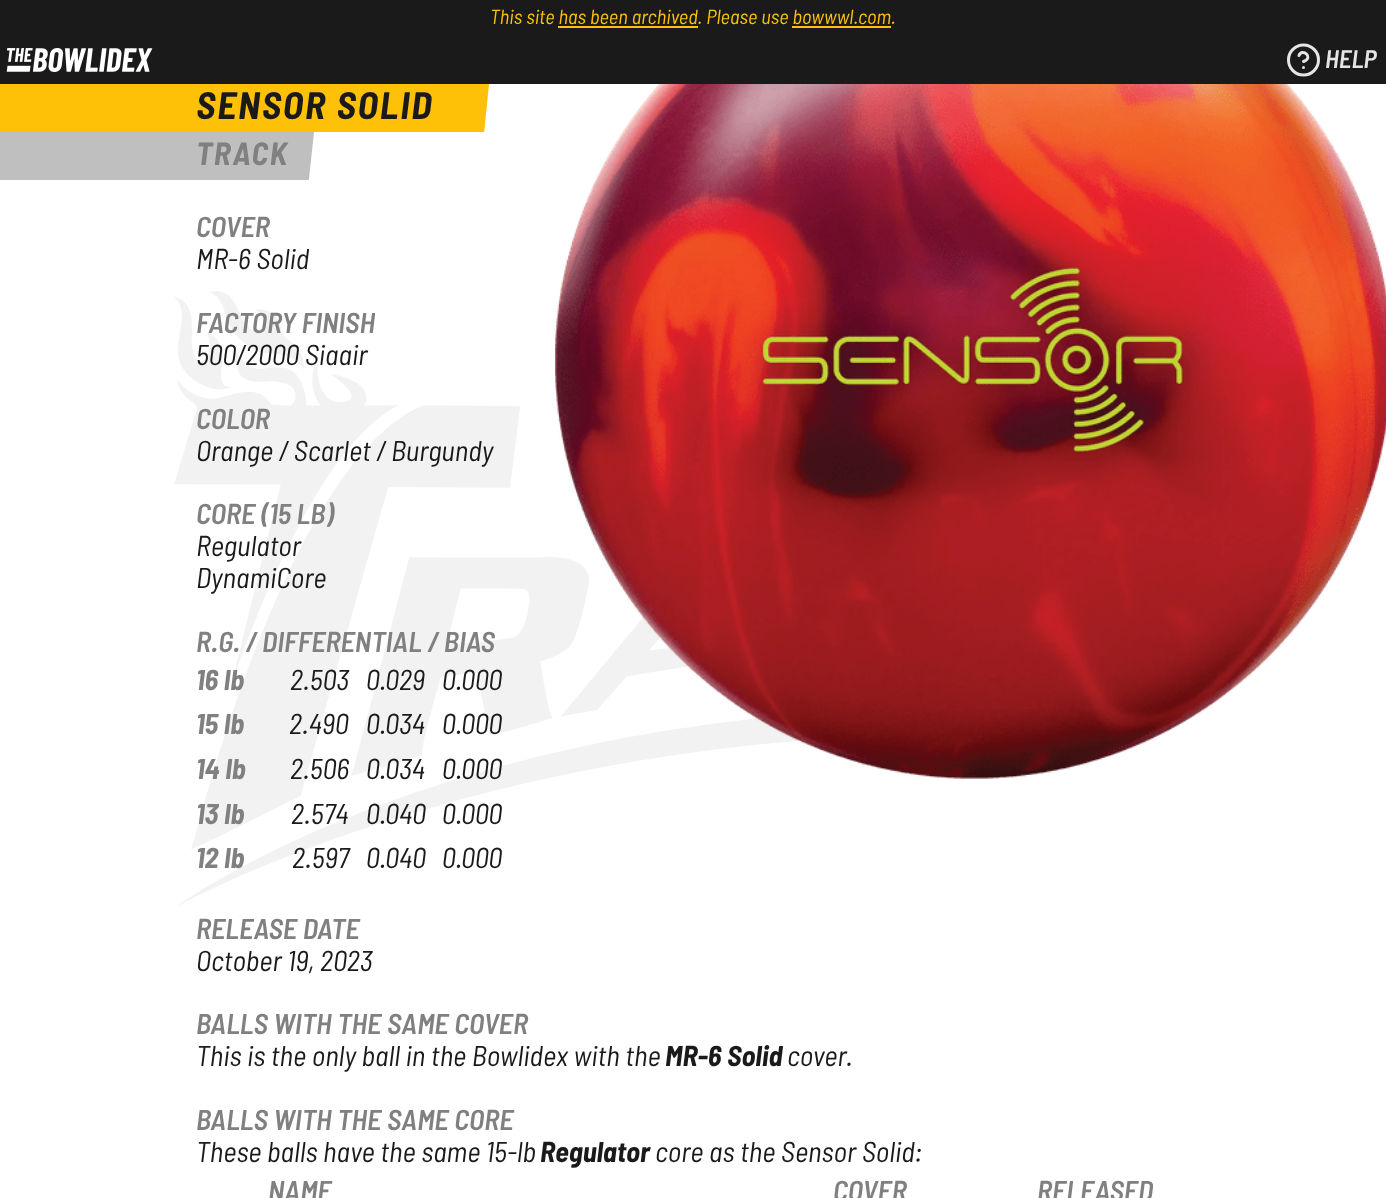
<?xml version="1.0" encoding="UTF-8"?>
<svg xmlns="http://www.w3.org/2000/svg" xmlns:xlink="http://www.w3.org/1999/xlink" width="1386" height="1198">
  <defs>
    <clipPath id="clip1"><rect x="183" y="84" width="306" height="48" /></clipPath>
    <clipPath id="clip2"><rect x="183" y="132" width="131" height="48" /></clipPath>
  </defs>
  <rect width="100%" height="100%" fill="#ffffff" />
  <image x="174" y="291" width="628" height="615" xlink:href="image1.png" />
  <rect width="1386" height="84" fill="#1a1a1a" />
  <rect x="558" y="26" width="140" height="2" fill="#ffc107" />
  <rect x="792" y="26" width="99" height="2" fill="#ffc107" />
  <image x="6" y="48" width="147" height="24" xlink:href="image2.png" />
  <circle cx="1303.5" cy="60" r="15" fill="none" stroke="#e5e5e5" stroke-width="3" />
  <path d="M 1299 55.5 c 3 -8 15.5 2 4.5 6 m 0 6 h 0" fill="none" stroke="#e5e5e5" stroke-width="3" stroke-linecap="round" stroke-linejoin="round" />
  <g clip-path="url(#clip1)">
    <path d="M -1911 234 l 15 -150 h 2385 l -15 150 z" fill="#ffc107" />
  </g>
  <rect y="84" width="183" height="48" fill="#ffc107" />
  <g clip-path="url(#clip2)">
    <path d="M -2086 282 l 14 -150 h 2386 l -16 150 z" fill="#bfbfbf" />
  </g>
  <rect y="132" width="183" height="48" fill="#bfbfbf" />
  <image x="555" y="84" width="831" height="695" xlink:href="image3.png" />
  <text x="490" y="24" style="font-family: Barlow Semi Condensed; font-size: 20.4px; font-style: italic; fill: #ffc107">This site has been archived. Please use bowwwl.com.</text>
  <text x="1325" y="68" style="font-family: Barlow Semi Condensed; font-size: 25.5px; font-weight: 600; font-style: italic; fill: #e5e5e5">HELP</text>
  <text x="196" y="119" style="font-family: Barlow Semi Condensed; font-size: 38.25px; font-weight: bold; font-style: italic; letter-spacing: 1.9px; fill: #1a1a1a">SENSOR SOLID</text>
  <text x="196" y="165" style="font-family: Barlow Semi Condensed; font-size: 32px; font-weight: bold; font-style: italic; letter-spacing: 1.5px; fill: #808080">TRACK</text>
  <text x="196" y="237" style="font-family: Barlow Semi Condensed; font-size: 28.75px; font-weight: 600; font-style: italic; fill: #808080">COVER</text>
  <text x="196" y="269" style="font-family: Barlow Semi Condensed; font-size: 28.75px; font-style: italic; fill: #1a1a1a">MR-6 Solid</text>
  <text x="196" y="333" style="font-family: Barlow Semi Condensed; font-size: 28.75px; font-weight: 600; font-style: italic; fill: #808080">FACTORY FINISH</text>
  <text x="196" y="365" style="font-family: Barlow Semi Condensed; font-size: 28.75px; font-style: italic; fill: #1a1a1a">500/2000 Siaair</text>
  <text x="196" y="429" style="font-family: Barlow Semi Condensed; font-size: 28.75px; font-weight: 600; font-style: italic; fill: #808080">COLOR</text>
  <text x="196" y="461" style="font-family: Barlow Semi Condensed; font-size: 28.75px; font-style: italic; fill: #1a1a1a">Orange / Scarlet / Burgundy</text>
  <text x="196" y="524" style="font-family: Barlow Semi Condensed; font-size: 28.75px; font-weight: 600; font-style: italic; fill: #808080">CORE (15 LB)</text>
  <text x="196" y="556" style="font-family: Barlow Semi Condensed; font-size: 28.75px; font-style: italic; fill: #1a1a1a">Regulator</text>
  <text x="196" y="588" style="font-family: Barlow Semi Condensed; font-size: 28.75px; font-style: italic; fill: #1a1a1a">DynamiCore</text>
  <text x="196" y="652" style="font-family: Barlow Semi Condensed; font-size: 28.75px; font-weight: 600; font-style: italic; fill: #808080">R.G. / DIFFERENTIAL / BIAS</text>
  <text x="196" y="690" style="font-family: Barlow Semi Condensed; font-size: 28.75px; font-weight: bold; font-style: italic; fill: #808080">16 lb</text>
  <text x="290" y="690" style="font-family: Barlow Semi Condensed; font-size: 28.75px; font-style: italic; fill: #1a1a1a">2.503</text>
  <text x="366" y="690" style="font-family: Barlow Semi Condensed; font-size: 28.75px; font-style: italic; fill: #1a1a1a">0.029</text>
  <text x="442" y="690" style="font-family: Barlow Semi Condensed; font-size: 28.75px; font-style: italic; fill: #1a1a1a">0.000</text>
  <text x="196" y="734" style="font-family: Barlow Semi Condensed; font-size: 28.75px; font-weight: bold; font-style: italic; fill: #808080">15 lb</text>
  <text x="289" y="734" style="font-family: Barlow Semi Condensed; font-size: 28.75px; font-style: italic; fill: #1a1a1a">2.490</text>
  <text x="366" y="734" style="font-family: Barlow Semi Condensed; font-size: 28.75px; font-style: italic; fill: #1a1a1a">0.034</text>
  <text x="442" y="734" style="font-family: Barlow Semi Condensed; font-size: 28.75px; font-style: italic; fill: #1a1a1a">0.000</text>
  <text x="196" y="779" style="font-family: Barlow Semi Condensed; font-size: 28.75px; font-weight: bold; font-style: italic; fill: #808080">14 lb</text>
  <text x="290" y="779" style="font-family: Barlow Semi Condensed; font-size: 28.75px; font-style: italic; fill: #1a1a1a">2.506</text>
  <text x="366" y="779" style="font-family: Barlow Semi Condensed; font-size: 28.75px; font-style: italic; fill: #1a1a1a">0.034</text>
  <text x="442" y="779" style="font-family: Barlow Semi Condensed; font-size: 28.75px; font-style: italic; fill: #1a1a1a">0.000</text>
  <text x="196" y="824" style="font-family: Barlow Semi Condensed; font-size: 28.75px; font-weight: bold; font-style: italic; fill: #808080">13 lb</text>
  <text x="291" y="824" style="font-family: Barlow Semi Condensed; font-size: 28.75px; font-style: italic; fill: #1a1a1a">2.574</text>
  <text x="366" y="824" style="font-family: Barlow Semi Condensed; font-size: 28.75px; font-style: italic; fill: #1a1a1a">0.040</text>
  <text x="442" y="824" style="font-family: Barlow Semi Condensed; font-size: 28.75px; font-style: italic; fill: #1a1a1a">0.000</text>
  <text x="196" y="868" style="font-family: Barlow Semi Condensed; font-size: 28.75px; font-weight: bold; font-style: italic; fill: #808080">12 lb</text>
  <text x="292" y="868" style="font-family: Barlow Semi Condensed; font-size: 28.75px; font-style: italic; fill: #1a1a1a">2.597</text>
  <text x="366" y="868" style="font-family: Barlow Semi Condensed; font-size: 28.75px; font-style: italic; fill: #1a1a1a">0.040</text>
  <text x="442" y="868" style="font-family: Barlow Semi Condensed; font-size: 28.75px; font-style: italic; fill: #1a1a1a">0.000</text>
  <text x="196" y="939" style="font-family: Barlow Semi Condensed; font-size: 28.75px; font-weight: 600; font-style: italic; fill: #808080">RELEASE DATE</text>
  <text x="196" y="971" style="font-family: Barlow Semi Condensed; font-size: 28.75px; font-style: italic; fill: #1a1a1a">October 19, 2023</text>
  <text x="196" y="1034" style="font-family: Barlow Semi Condensed; font-size: 28.75px; font-weight: 600; font-style: italic; fill: #808080">BALLS WITH THE SAME COVER</text>
  <text x="196" y="1066" style="font-family: Barlow Semi Condensed; font-size: 28.75px; font-style: italic; fill: #1a1a1a">This is the only ball in the Bowlidex with the</text>
  <text x="665" y="1066" style="font-family: Barlow Semi Condensed; font-size: 28.75px; font-weight: bold; font-style: italic; fill: #1a1a1a">MR-6 Solid</text>
  <text x="787" y="1066" style="font-family: Barlow Semi Condensed; font-size: 28.75px; font-style: italic; fill: #1a1a1a">cover.</text>
  <text x="196" y="1130" style="font-family: Barlow Semi Condensed; font-size: 28.75px; font-weight: 600; font-style: italic; fill: #808080">BALLS WITH THE SAME CORE</text>
  <text x="196" y="1162" style="font-family: Barlow Semi Condensed; font-size: 28.75px; font-style: italic; fill: #1a1a1a">These balls have the same 15-lb</text>
  <text x="540" y="1162" style="font-family: Barlow Semi Condensed; font-size: 28.75px; font-weight: bold; font-style: italic; fill: #1a1a1a">Regulator</text>
  <text x="655" y="1162" style="font-family: Barlow Semi Condensed; font-size: 28.75px; font-style: italic; fill: #1a1a1a">core as the Sensor Solid:</text>
  <text x="268" y="1201" style="font-family: Barlow Semi Condensed; font-size: 28.75px; font-weight: 600; font-style: italic; fill: #808080">NAME</text>
  <text x="833" y="1201" style="font-family: Barlow Semi Condensed; font-size: 28.75px; font-weight: 600; font-style: italic; fill: #808080">COVER</text>
  <text x="1037" y="1201" style="font-family: Barlow Semi Condensed; font-size: 28.75px; font-weight: 600; font-style: italic; fill: #808080">RELEASED</text>
</svg>
